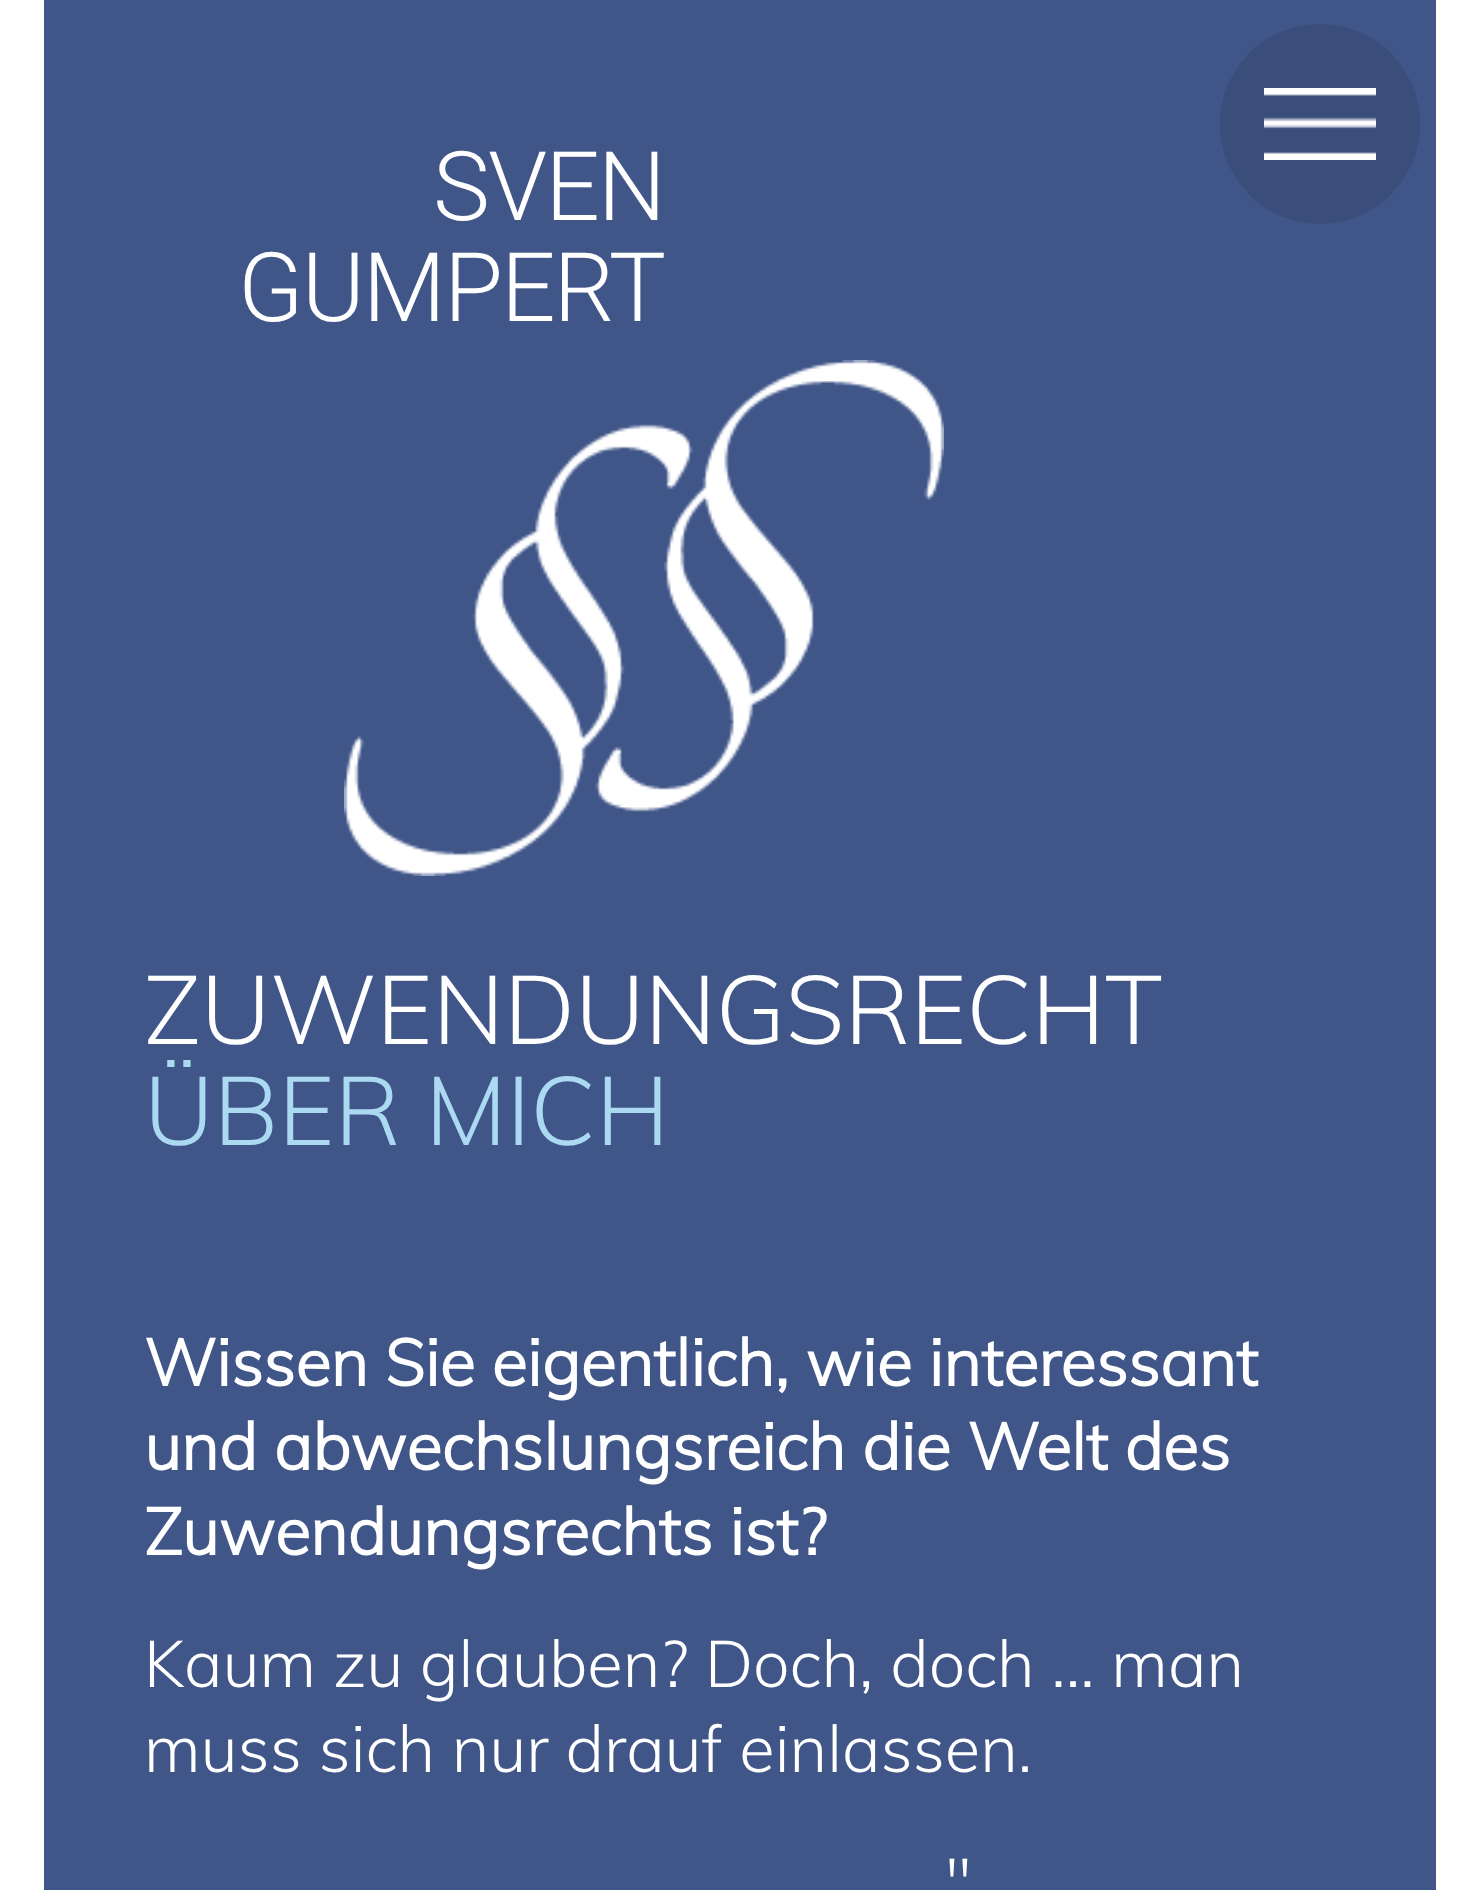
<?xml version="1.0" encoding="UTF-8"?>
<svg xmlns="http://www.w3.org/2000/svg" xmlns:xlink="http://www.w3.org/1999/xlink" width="1479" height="1890">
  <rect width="100%" height="100%" fill="#ffffff" />
  <rect x="44" width="1392" height="1890" fill="#405689" />
  <circle cx="1320" cy="124" r="100" fill="#3a4d7b" />
  <image x="1264" y="88" width="112" height="72" xlink:href="image1.png" />
  <image x="344" y="360" width="600" height="516" xlink:href="image2.png" />
  <text x="433" y="220" style="font-family: Roboto; font-size: 96px; font-weight: 300; letter-spacing: -2px; fill: #ffffff">SVEN</text>
  <text x="238" y="321" style="font-family: Roboto; font-size: 96px; font-weight: 300; letter-spacing: -2px; fill: #ffffff">GUMPERT</text>
  <text x="144" y="1044" style="font-family: Muli; font-size: 96px; font-weight: 300; fill: #ffffff">ZUWENDUNGSRECHT</text>
  <text x="144" y="1145" style="font-family: Muli; font-size: 96px; font-weight: 300; fill: #abd9f1">ÜBER MICH</text>
  <text x="144" y="1386" style="font-family: Muli; font-size: 65.1px; font-weight: bold; fill: #ffffff">Wissen Sie eigentlich, wie interessant</text>
  <text x="144" y="1470" style="font-family: Muli; font-size: 65.1px; font-weight: bold; fill: #ffffff">und abwechslungsreich die Welt des</text>
  <text x="144" y="1555" style="font-family: Muli; font-size: 65.1px; font-weight: bold; fill: #ffffff">Zuwendungsrechts ist?</text>
  <text x="144" y="1687" style="font-family: Muli; font-size: 65.1px; font-weight: 300; fill: #ffffff">Kaum zu glauben? Doch, doch … man</text>
  <text x="144" y="1772" style="font-family: Muli; font-size: 65.1px; font-weight: 300; fill: #ffffff">muss sich nur drauf einlassen.</text>
  <text x="945" y="1905" style="font-family: Muli; font-size: 65.1px; font-weight: 300; fill: #ffffff">"</text>
</svg>
